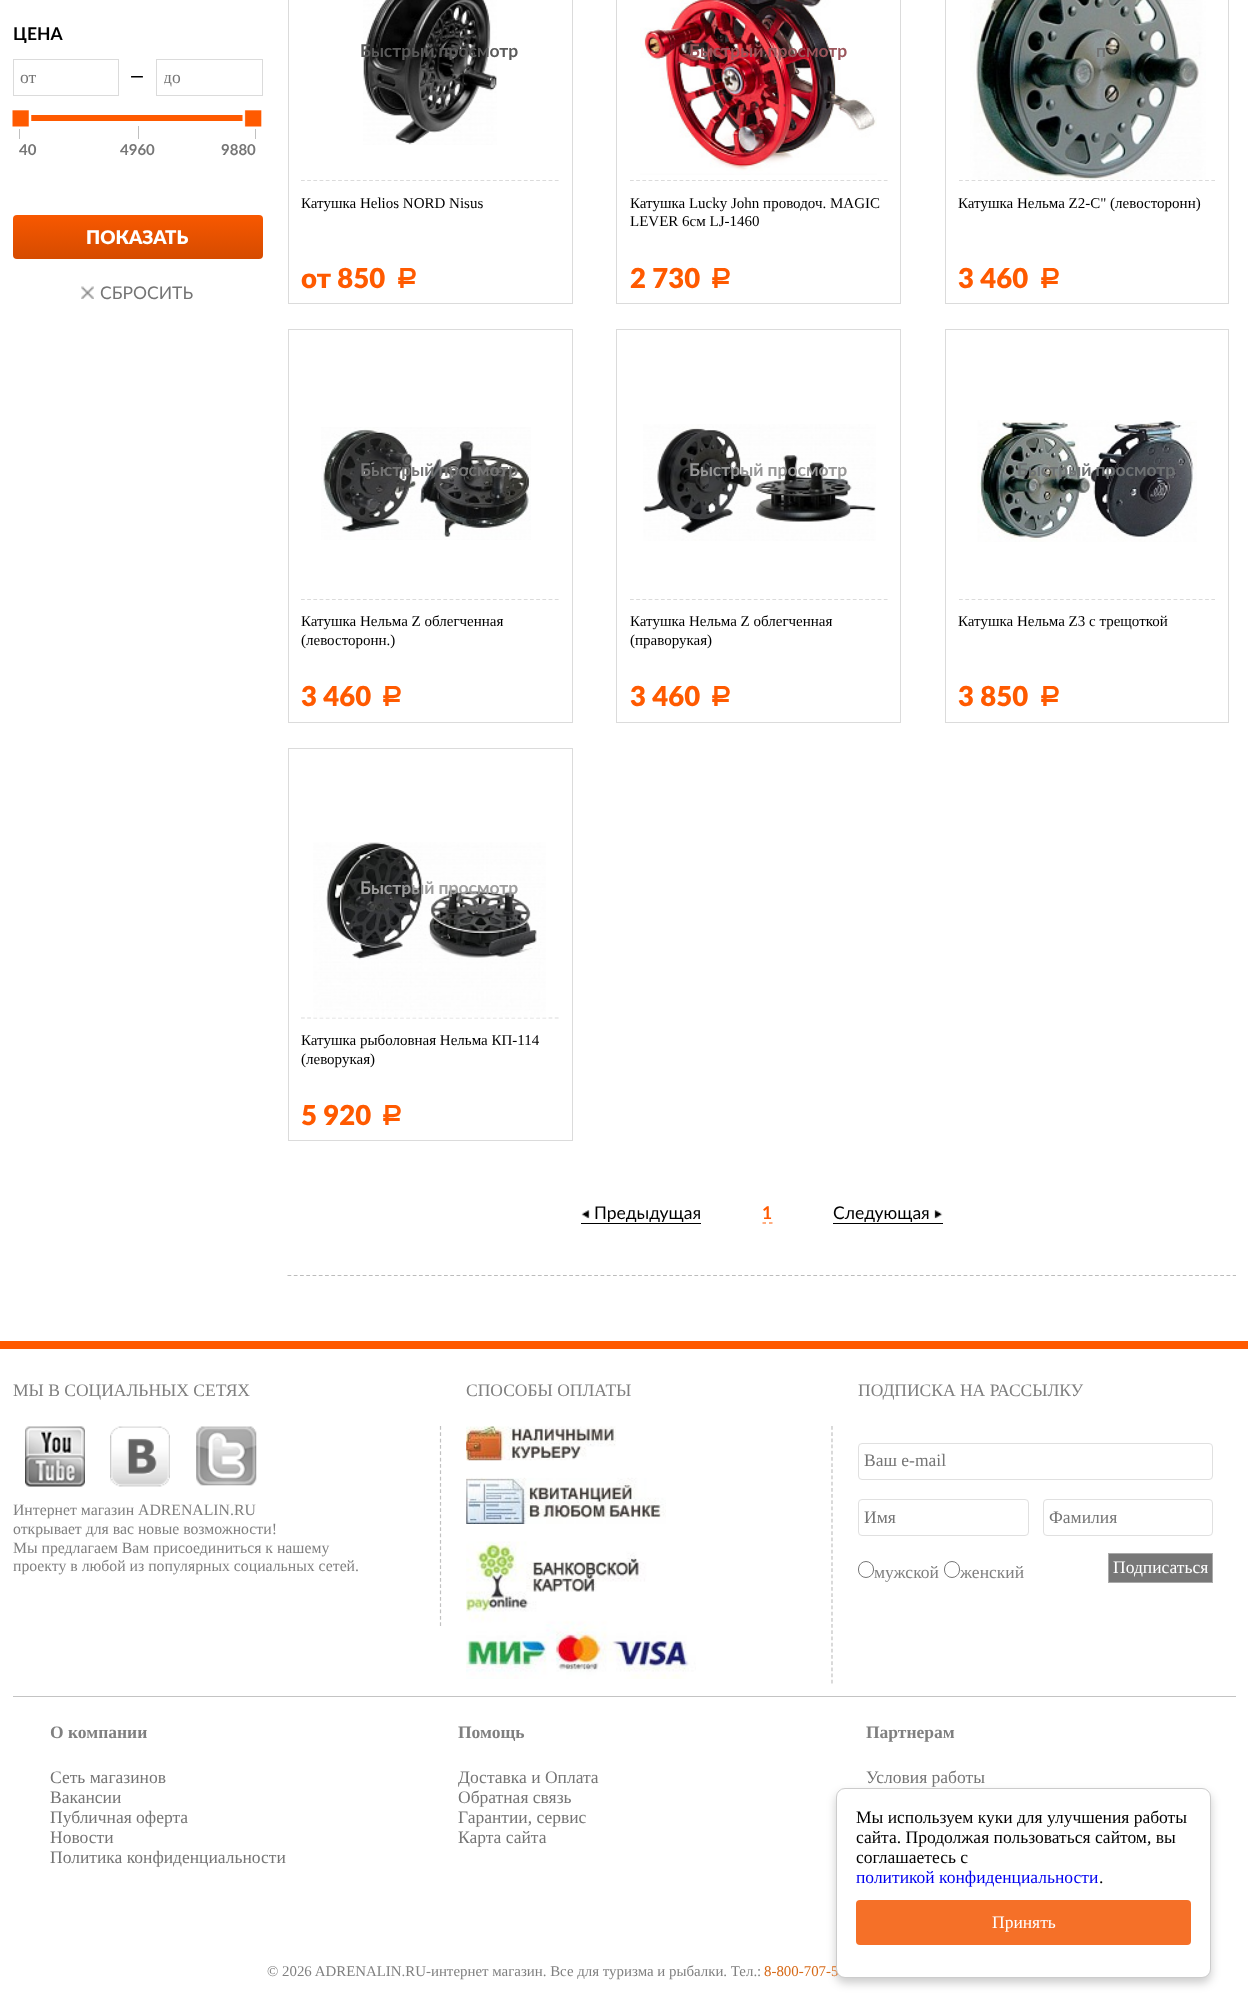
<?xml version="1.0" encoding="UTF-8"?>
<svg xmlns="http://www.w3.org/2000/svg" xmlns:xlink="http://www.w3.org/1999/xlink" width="1248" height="2014">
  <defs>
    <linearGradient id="g1" gradientUnits="userSpaceOnUse" x1="138" y1="215" x2="138" y2="259"><stop offset="0" stop-color="#f85800" /><stop offset="1" stop-color="#d54b00" /></linearGradient>
    <clipPath id="clip1"><rect x="164" y="68" width="97" height="20" /></clipPath>
  </defs>
  <rect width="100%" height="100%" fill="#ffffff" />
  <rect x="13.5" y="59.5" width="105" height="36" fill="none" stroke="#dbdbdb" />
  <rect x="156.5" y="59.5" width="106" height="36" fill="none" stroke="#dbdbdb" />
  <rect x="31" y="115" width="212" height="6" fill="#ff5a00" />
  <rect x="19" y="126" width="1" height="13" fill="#c0c0c0" />
  <image x="10" y="108" width="22" height="21" xlink:href="image1.png" />
  <rect x="255" y="126" width="1" height="13" fill="#c0c0c0" />
  <image x="242" y="108" width="22" height="21" xlink:href="image2.png" />
  <rect x="138" y="126" width="1" height="13" fill="#c0c0c0" />
  <rect x="13" y="215" width="250" height="44" rx="4" fill="url(#g1)" />
  <image x="81" y="286" width="13" height="13" xlink:href="image3.png" />
  <rect x="288.5" y="-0.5" width="284" height="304" fill="none" stroke="#dbdbdb" />
  <path d="M 301 180.5 h 258" fill="none" stroke="#dbdbdb" stroke-width="1.2" stroke-dasharray="3.75 2.44" />
  <image x="363" y="0" width="134" height="145" xlink:href="image4.png" />
  <rect x="616.5" y="-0.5" width="284" height="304" fill="none" stroke="#dbdbdb" />
  <path d="M 630 180.5 h 257.5" fill="none" stroke="#dbdbdb" stroke-width="1.2" stroke-dasharray="3.75 2.44" />
  <image x="640" y="0" width="237" height="175" xlink:href="image5.png" />
  <rect x="945.5" y="-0.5" width="283" height="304" fill="none" stroke="#dbdbdb" />
  <path d="M 959 180.5 h 256" fill="none" stroke="#dbdbdb" stroke-width="1.2" stroke-dasharray="3.75 2.56" />
  <image x="970" y="0" width="236" height="180" xlink:href="image6.png" />
  <rect x="288.5" y="329.5" width="284" height="393" fill="none" stroke="#dbdbdb" />
  <path d="M 301 599.5 h 258" fill="none" stroke="#dbdbdb" stroke-width="1.2" stroke-dasharray="3.75 2.44" />
  <image x="321" y="427" width="210" height="113" xlink:href="image7.png" />
  <rect x="616.5" y="329.5" width="284" height="393" fill="none" stroke="#dbdbdb" />
  <path d="M 630 599.5 h 257.5" fill="none" stroke="#dbdbdb" stroke-width="1.2" stroke-dasharray="3.75 2.44" />
  <image x="643" y="424" width="233" height="117" xlink:href="image8.png" />
  <rect x="945.5" y="329.5" width="283" height="393" fill="none" stroke="#dbdbdb" />
  <path d="M 959 599.5 h 256" fill="none" stroke="#dbdbdb" stroke-width="1.2" stroke-dasharray="3.75 2.56" />
  <image x="977" y="420" width="220" height="122" xlink:href="image9.png" />
  <rect x="288.5" y="748.5" width="284" height="392" fill="none" stroke="#dbdbdb" />
  <path d="M 301 1018 h 258" fill="none" stroke="#dbdbdb" stroke-width="1.2" stroke-dasharray="3.75 2.44" />
  <image x="313" y="842" width="233" height="176" xlink:href="image10.png" />
  <path d="M 287.5 1275.5 h 948.5" fill="none" stroke="#bcbcbc" stroke-width="1.2" stroke-dasharray="3.75 2.51" />
  <image x="581" y="1210" width="9" height="9" xlink:href="image11.png" />
  <rect x="581" y="1223" width="120" height="1" fill="#000000" />
  <path d="M 762.5 1223 h 3.5 m 3 0 h 3.5" fill="none" stroke="#ff5a00" stroke-width="1.2" />
  <rect x="833" y="1223" width="110" height="1" fill="#000000" />
  <image x="934" y="1210" width="9" height="9" xlink:href="image12.png" />
  <rect y="1341" width="1248" height="8" fill="#ff5a00" />
  <path d="M 440.5 1426 v 200" fill="none" stroke="#c1c1c1" stroke-width="1.2" stroke-dasharray="3.75 2.58" />
  <image x="25" y="1426" width="60" height="61" xlink:href="image13.png" />
  <image x="110" y="1426" width="60" height="61" xlink:href="image14.png" />
  <image x="196" y="1426" width="61" height="60" xlink:href="image15.png" />
  <path d="M 832 1426 v 258" fill="none" stroke="#c1c1c1" stroke-width="1.2" stroke-dasharray="3.75 2.44" />
  <image x="466" y="1426" width="150" height="35" xlink:href="image16.png" />
  <image x="466" y="1477" width="200" height="47" xlink:href="image17.png" />
  <image x="466" y="1541" width="230" height="138" xlink:href="image18.png" />
  <rect x="858.5" y="1443.5" width="354" height="36" rx="3.5" fill="none" stroke="#e0e0e0" />
  <rect x="858.5" y="1499.5" width="170" height="36" rx="3.5" fill="none" stroke="#e0e0e0" />
  <rect x="1043.5" y="1499.5" width="169" height="36" rx="3.5" fill="none" stroke="#e0e0e0" />
  <rect x="858.5" y="1561.5" width="15" height="16" rx="7.5" fill="none" stroke="#767676" />
  <rect x="944.5" y="1561.5" width="15" height="16" rx="7.5" fill="none" stroke="#767676" />
  <rect x="1108.5" y="1553.5" width="104" height="29" fill="#787878" stroke="#aaaaaa" />
  <rect x="13" y="1696" width="1223" height="1" fill="#c3c3c3" />
  <rect x="836" y="1793" width="375" height="190" rx="9" fill="#000000" fill-opacity="0.2" filter="blur(5px)" />
  <text x="13" y="40" style="font-family: Lato; font-size: 17.5px; font-weight: bold; fill: #000000">ЦЕНА</text>
  <text x="20" y="83" style="font-family: Liberation Serif; font-size: 17.5px; fill: #757575">от</text>
  <text x="130" y="82" style="font-family: Lato; font-size: 17.5px; font-weight: bold; fill: #000000">—</text>
  <g clip-path="url(#clip1)">
    <text x="163" y="83" style="font-family: Liberation Serif; font-size: 17.5px; fill: #757575">до</text>
  </g>
  <text x="19" y="155" style="font-family: Lato; font-size: 15px; font-weight: bold; fill: #757575">40</text>
  <text x="120" y="155" style="font-family: Lato; font-size: 15px; font-weight: bold; fill: #757575">4960</text>
  <text x="221" y="155" style="font-family: Lato; font-size: 15px; font-weight: bold; fill: #757575">9880</text>
  <text x="86" y="244" style="font-family: Lato; font-size: 18.75px; font-weight: 900; fill: #ffffff">ПОКАЗАТЬ</text>
  <text x="100" y="299" style="font-family: Lato; font-size: 17.5px; fill: #757575">СБРОСИТЬ</text>
  <text x="360" y="57" style="font-family: Lato; font-size: 17.5px; font-weight: bold; fill: #5a5a5a">Быстрый просмотр</text>
  <text x="301" y="208" style="font-family: Liberation Serif; font-size: 15px; fill: #000000">Катушка Helios NORD Nisus</text>
  <text x="301" y="288" style="font-family: Lato; font-size: 27.5px; font-weight: 900; fill: #ff5a00">от 850</text>
  <text x="396" y="288" style="font-family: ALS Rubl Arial; font-size: 27.5px; font-weight: bold; fill: #ff5a00">Р</text>
  <text x="689" y="57" style="font-family: Lato; font-size: 17.5px; font-weight: bold; fill: #9b555b">Быстрый просмотр</text>
  <text x="630" y="208" style="font-family: Liberation Serif; font-size: 15px; fill: #000000">Катушка Lucky John проводоч. MAGIC</text>
  <text x="630" y="226" style="font-family: Liberation Serif; font-size: 15px; fill: #000000">LEVER 6см LJ-1460</text>
  <text x="630" y="288" style="font-family: Lato; font-size: 27.5px; font-weight: 900; fill: #ff5a00">2 730</text>
  <text x="710" y="288" style="font-family: ALS Rubl Arial; font-size: 27.5px; font-weight: bold; fill: #ff5a00">Р</text>
  <text x="1096" y="57" style="font-family: Lato; font-size: 17.5px; font-weight: bold; fill: #757575">п</text>
  <text x="958" y="208" style="font-family: Liberation Serif; font-size: 15px; fill: #000000">Катушка Нельма Z2-С" (левосторонн)</text>
  <text x="958" y="288" style="font-family: Lato; font-size: 27.5px; font-weight: 900; fill: #ff5a00">3 460</text>
  <text x="1039" y="288" style="font-family: ALS Rubl Arial; font-size: 27.5px; font-weight: bold; fill: #ff5a00">Р</text>
  <text x="360" y="476" style="font-family: Lato; font-size: 17.5px; font-weight: bold; fill: #757575">Быстрый просмотр</text>
  <text x="301" y="626" style="font-family: Liberation Serif; font-size: 15px; fill: #000000">Катушка Нельма Z облегченная</text>
  <text x="301" y="645" style="font-family: Liberation Serif; font-size: 15px; fill: #000000">(левосторонн.)</text>
  <text x="301" y="706" style="font-family: Lato; font-size: 27.5px; font-weight: 900; fill: #ff5a00">3 460</text>
  <text x="381" y="706" style="font-family: ALS Rubl Arial; font-size: 27.5px; font-weight: bold; fill: #ff5a00">Р</text>
  <text x="689" y="476" style="font-family: Lato; font-size: 17.5px; font-weight: bold; fill: #969696">Быстрый просмотр</text>
  <text x="630" y="626" style="font-family: Liberation Serif; font-size: 15px; fill: #000000">Катушка Нельма Z облегченная</text>
  <text x="630" y="645" style="font-family: Liberation Serif; font-size: 15px; fill: #000000">(праворукая)</text>
  <text x="630" y="706" style="font-family: Lato; font-size: 27.5px; font-weight: 900; fill: #ff5a00">3 460</text>
  <text x="710" y="706" style="font-family: ALS Rubl Arial; font-size: 27.5px; font-weight: bold; fill: #ff5a00">Р</text>
  <text x="1017" y="476" style="font-family: Lato; font-size: 17.5px; font-weight: bold; fill: #6e7173">Быстрый просмотр</text>
  <text x="958" y="626" style="font-family: Liberation Serif; font-size: 15px; fill: #000000">Катушка Нельма Z3 с трещоткой</text>
  <text x="958" y="706" style="font-family: Lato; font-size: 27.5px; font-weight: 900; fill: #ff5a00">3 850</text>
  <text x="1039" y="706" style="font-family: ALS Rubl Arial; font-size: 27.5px; font-weight: bold; fill: #ff5a00">Р</text>
  <text x="360" y="894" style="font-family: Lato; font-size: 17.5px; font-weight: bold; fill: #9c9c9c">Быстрый просмотр</text>
  <text x="301" y="1045" style="font-family: Liberation Serif; font-size: 15px; fill: #000000">Катушка рыболовная Нельма КП-114</text>
  <text x="301" y="1064" style="font-family: Liberation Serif; font-size: 15px; fill: #000000">(леворукая)</text>
  <text x="301" y="1125" style="font-family: Lato; font-size: 27.5px; font-weight: 900; fill: #ff5a00">5 920</text>
  <text x="381" y="1125" style="font-family: ALS Rubl Arial; font-size: 27.5px; font-weight: bold; fill: #ff5a00">Р</text>
  <text x="594" y="1219" style="font-family: Lato; font-size: 17.5px; fill: #000000">Предыдущая</text>
  <text x="762" y="1219" style="font-family: Lato; font-size: 17.5px; font-weight: bold; fill: #ff5a00">1</text>
  <text x="833" y="1219" style="font-family: Lato; font-size: 17.5px; fill: #000000">Следующая</text>
  <text x="13" y="1396" style="font-family: Liberation Serif; font-size: 17.5px; fill: #808080">МЫ В СОЦИАЛЬНЫХ СЕТЯХ</text>
  <text x="13" y="1515" style="font-family: Liberation Serif; font-size: 15.75px; fill: #808080">Интернет магазин ADRENALIN.RU</text>
  <text x="13" y="1534" style="font-family: Liberation Serif; font-size: 15.75px; fill: #808080">открывает для вас новые возможности!</text>
  <text x="13" y="1553" style="font-family: Liberation Serif; font-size: 15.75px; fill: #808080">Мы предлагаем Вам присоединиться к нашему</text>
  <text x="13" y="1571" style="font-family: Liberation Serif; font-size: 15.75px; fill: #808080">проекту в любой из популярных социальных сетей.</text>
  <text x="466" y="1396" style="font-family: Liberation Serif; font-size: 17.5px; fill: #808080">СПОСОБЫ ОПЛАТЫ</text>
  <text x="858" y="1396" style="font-family: Liberation Serif; font-size: 17.5px; fill: #808080">ПОДПИСКА НА РАССЫЛКУ</text>
  <text x="864" y="1466" style="font-family: Liberation Serif; font-size: 17.5px; fill: #757575">Ваш e-mail</text>
  <text x="864" y="1523" style="font-family: Liberation Serif; font-size: 17.5px; fill: #757575">Имя</text>
  <text x="1049" y="1523" style="font-family: Liberation Serif; font-size: 17.5px; fill: #757575">Фамилия</text>
  <text x="874" y="1578" style="font-family: Liberation Serif; font-size: 17.5px; fill: #808080">мужской</text>
  <text x="960" y="1578" style="font-family: Liberation Serif; font-size: 17.5px; fill: #808080">женский</text>
  <text x="1113" y="1573" style="font-family: Liberation Serif; font-size: 17.5px; fill: #ffffff">Подписаться</text>
  <text x="50" y="1738" style="font-family: Liberation Serif; font-size: 17.5px; font-weight: bold; fill: #808080">О компании</text>
  <text x="50" y="1783" style="font-family: Liberation Serif; font-size: 17.5px; fill: #757575">Сеть магазинов</text>
  <text x="50" y="1803" style="font-family: Liberation Serif; font-size: 17.5px; fill: #757575">Вакансии</text>
  <text x="50" y="1823" style="font-family: Liberation Serif; font-size: 17.5px; fill: #757575">Публичная оферта</text>
  <text x="50" y="1843" style="font-family: Liberation Serif; font-size: 17.5px; fill: #757575">Новости</text>
  <text x="50" y="1863" style="font-family: Liberation Serif; font-size: 17.5px; fill: #757575">Политика конфиденциальности</text>
  <text x="458" y="1738" style="font-family: Liberation Serif; font-size: 17.5px; font-weight: bold; fill: #808080">Помощь</text>
  <text x="458" y="1783" style="font-family: Liberation Serif; font-size: 17.5px; fill: #757575">Доставка и Оплата</text>
  <text x="458" y="1803" style="font-family: Liberation Serif; font-size: 17.5px; fill: #757575">Обратная связь</text>
  <text x="458" y="1823" style="font-family: Liberation Serif; font-size: 17.5px; fill: #757575">Гарантии, сервис</text>
  <text x="458" y="1843" style="font-family: Liberation Serif; font-size: 17.5px; fill: #757575">Карта сайта</text>
  <text x="866" y="1738" style="font-family: Liberation Serif; font-size: 17.5px; font-weight: bold; fill: #808080">Партнерам</text>
  <text x="866" y="1783" style="font-family: Liberation Serif; font-size: 17.5px; fill: #757575">Условия работы</text>
  <text x="267" y="1976" style="font-family: Liberation Serif; font-size: 14.9px; fill: #808080">© 2026 ADRENALIN.RU-интернет магазин. Все для туризма и рыбалки. Тел.:</text>
  <text x="764" y="1976" style="font-family: Liberation Serif; font-size: 14.9px; fill: #d76a18">8-800-707-5</text>
  <rect x="836.5" y="1788.5" width="374" height="189" rx="8.5" fill="#ffffff" stroke="#cccccc" />
  <text x="856" y="1823" style="font-family: Liberation Serif; font-size: 17.5px; fill: #000000">Мы используем куки для улучшения работы</text>
  <text x="856" y="1843" style="font-family: Liberation Serif; font-size: 17.5px; fill: #000000">сайта. Продолжая пользоваться сайтом, вы</text>
  <text x="856" y="1863" style="font-family: Liberation Serif; font-size: 17.5px; fill: #000000">соглашаетесь с</text>
  <text x="856" y="1883" style="font-family: Liberation Serif; font-size: 17.5px; fill: #0000ee">политикой конфиденциальности</text>
  <text x="1099" y="1883" style="font-family: Liberation Serif; font-size: 17.5px; fill: #000000">.</text>
  <rect x="856" y="1900" width="335" height="45" rx="4" fill="#f57028" />
  <text x="992" y="1928" style="font-family: Liberation Serif; font-size: 17.5px; fill: #ffffff">Принять</text>
</svg>
